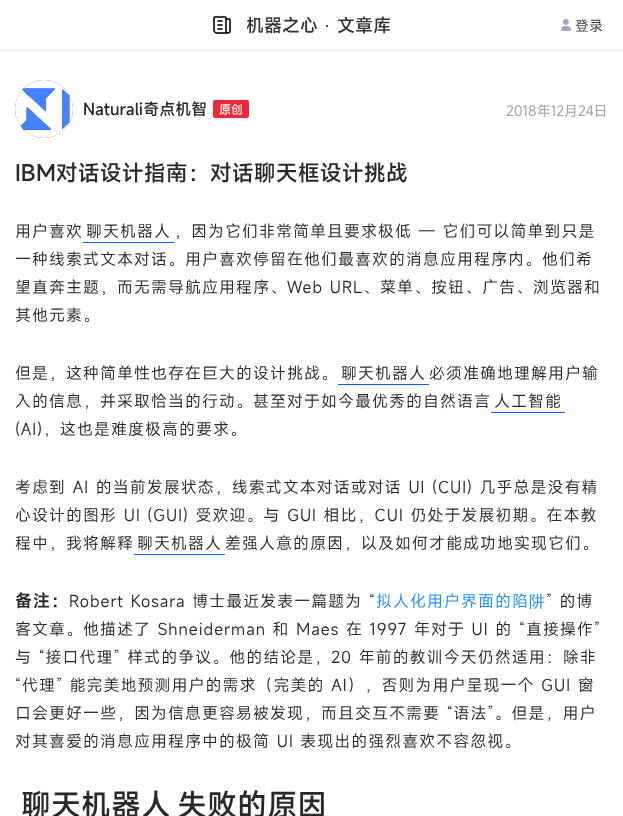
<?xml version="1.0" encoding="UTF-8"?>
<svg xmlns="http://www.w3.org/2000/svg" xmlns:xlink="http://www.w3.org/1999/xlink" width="623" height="816">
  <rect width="100%" height="100%" fill="#ffffff" />
  <rect y="50" width="623" height="1" fill="#ebecf1" />
  <image x="212" y="15" width="20" height="20" xlink:href="image1.png" />
  <image x="561" y="19" width="10" height="12" xlink:href="image2.png" />
  <circle cx="44" cy="109" r="29" fill="#333333" />
  <image x="15" y="80" width="58" height="58" xlink:href="image3.png" />
  <rect x="213" y="100" width="36" height="18" rx="2" fill="#eb2835" />
  <rect x="83" y="242" width="91" height="1" fill="#0062ff" />
  <rect x="338" y="384" width="91" height="1" fill="#0062ff" />
  <rect x="491" y="412" width="74" height="1" fill="#0062ff" />
  <rect x="134" y="554" width="91" height="1" fill="#0062ff" />
  <text x="246" y="32" style="font-family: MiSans; font-size: 18px; font-weight: 500; fill: #333333">机器之心</text>
  <text x="324" y="32" style="font-family: Liberation Serif; font-size: 18px; fill: #333333">·</text>
  <text x="337" y="32" style="font-family: MiSans; font-size: 18px; font-weight: 500; fill: #333333">文章库</text>
  <text x="575" y="31" style="font-family: MiSans; font-size: 14px; fill: #333333">登录</text>
  <text x="83" y="115" style="font-family: MiSans; font-size: 16px; font-weight: 500; fill: #282828">Naturali奇点机智</text>
  <text x="219" y="114" style="font-family: MiSans; font-size: 12px; font-weight: 500; fill: #f6f6f6">原创</text>
  <text x="506" y="116" style="font-family: MiSans; font-size: 14px; fill: #9d9d9d">2018年12月24日</text>
  <text x="15" y="181" style="font-family: MiSans; font-size: 22px; font-weight: 500; fill: #282828">IBM对话设计指南：对话聊天框设计挑战</text>
  <text x="15" y="237" style="font-family: MiSans; font-size: 16px; letter-spacing: 1px; fill: #282828">用户喜欢</text>
  <text x="86" y="237" style="font-family: MiSans; font-size: 16px; letter-spacing: 1px; fill: #282828">聊天机器人</text>
  <text x="174" y="237" style="font-family: MiSans; font-size: 16px; letter-spacing: 1px; fill: #282828">，因为它们非常简单且要求极低 — 它们可以简单到只是</text>
  <text x="15" y="265" style="font-family: MiSans; font-size: 16px; letter-spacing: 1px; fill: #282828">一种线索式文本对话。用户喜欢停留在他们最喜欢的消息应用程序内。他们希</text>
  <text x="15" y="293" style="font-family: MiSans; font-size: 16px; letter-spacing: 1px; fill: #282828">望直奔主题，而无需导航应用程序、Web URL、菜单、按钮、广告、浏览器和</text>
  <text x="15" y="321" style="font-family: MiSans; font-size: 16px; letter-spacing: 1px; fill: #282828">其他元素。</text>
  <text x="15" y="379" style="font-family: MiSans; font-size: 16px; letter-spacing: 1px; fill: #282828">但是，这种简单性也存在巨大的设计挑战。</text>
  <text x="341" y="379" style="font-family: MiSans; font-size: 16px; letter-spacing: 1px; fill: #282828">聊天机器人</text>
  <text x="429" y="379" style="font-family: MiSans; font-size: 16px; letter-spacing: 1px; fill: #282828">必须准确地理解用户输</text>
  <text x="15" y="407" style="font-family: MiSans; font-size: 16px; letter-spacing: 1px; fill: #282828">入的信息，并采取恰当的行动。甚至对于如今最优秀的自然语言</text>
  <text x="494" y="407" style="font-family: MiSans; font-size: 16px; letter-spacing: 1px; fill: #282828">人工智能</text>
  <text x="15" y="435" style="font-family: MiSans; font-size: 16px; letter-spacing: 1px; fill: #282828">(AI)，这也是难度极高的要求。</text>
  <text x="15" y="493" style="font-family: MiSans; font-size: 16px; letter-spacing: 1px; fill: #282828">考虑到 AI 的当前发展状态，线索式文本对话或对话 UI (CUI) 几乎总是没有精</text>
  <text x="15" y="521" style="font-family: MiSans; font-size: 16px; letter-spacing: 1px; fill: #282828">心设计的图形 UI (GUI) 受欢迎。与 GUI 相比，CUI 仍处于发展初期。在本教</text>
  <text x="15" y="549" style="font-family: MiSans; font-size: 16px; letter-spacing: 1px; fill: #282828">程中，我将解释</text>
  <text x="137" y="549" style="font-family: MiSans; font-size: 16px; letter-spacing: 1px; fill: #282828">聊天机器人</text>
  <text x="225" y="549" style="font-family: MiSans; font-size: 16px; letter-spacing: 1px; fill: #282828">差强人意的原因，以及如何才能成功地实现它们。</text>
  <text x="15" y="607" style="font-family: MiSans; font-size: 17px; font-weight: 600; letter-spacing: 1px; fill: #282828">备注：</text>
  <text x="69" y="607" style="font-family: MiSans; font-size: 16px; letter-spacing: 1px; fill: #282828">Robert Kosara 博士最近发表一篇题为 “</text>
  <text x="376" y="607" style="font-family: MiSans; font-size: 16px; letter-spacing: 1px; fill: #1890ff">拟人化用户界面的陷</text>
  <text x="529" y="607" style="font-family: WenQuanYi Zen Hei; font-size: 16px; font-weight: 500; letter-spacing: 1px; fill: #1890ff">阱</text>
  <text x="546" y="607" style="font-family: MiSans; font-size: 16px; letter-spacing: 1px; fill: #282828">” 的博</text>
  <text x="15" y="635" style="font-family: MiSans; font-size: 16px; letter-spacing: 1px; fill: #282828">客文章。他描述了 Shneiderman 和 Maes 在 1997 年对于 UI 的 “直接操作”</text>
  <text x="15" y="663" style="font-family: MiSans; font-size: 16px; letter-spacing: 1px; fill: #282828">与 “接口代理” 样式的争议。他的结论是，20 年前的教训今天仍然适用：除非</text>
  <text x="15" y="691" style="font-family: MiSans; font-size: 16px; letter-spacing: 1px; fill: #282828">“代理” 能完美地预测用户的需求（完美的 AI），否则为用户呈现一个 GUI 窗</text>
  <text x="15" y="719" style="font-family: MiSans; font-size: 16px; letter-spacing: 1px; fill: #282828">口会更好一些，因为信息更容易被发现，而且交互不需要 “语法”。但是，用户</text>
  <text x="15" y="747" style="font-family: MiSans; font-size: 16px; letter-spacing: 1px; fill: #282828">对其喜爱的消息应用程序中的极简 UI 表现出的强烈喜欢不容忽视。</text>
  <text x="21" y="816" style="font-family: MiSans; font-size: 30px; font-weight: 500; fill: #282828">聊天机器人</text>
  <text x="177" y="816" style="font-family: MiSans; font-size: 30px; font-weight: 500; fill: #282828">失败的原因</text>
</svg>
